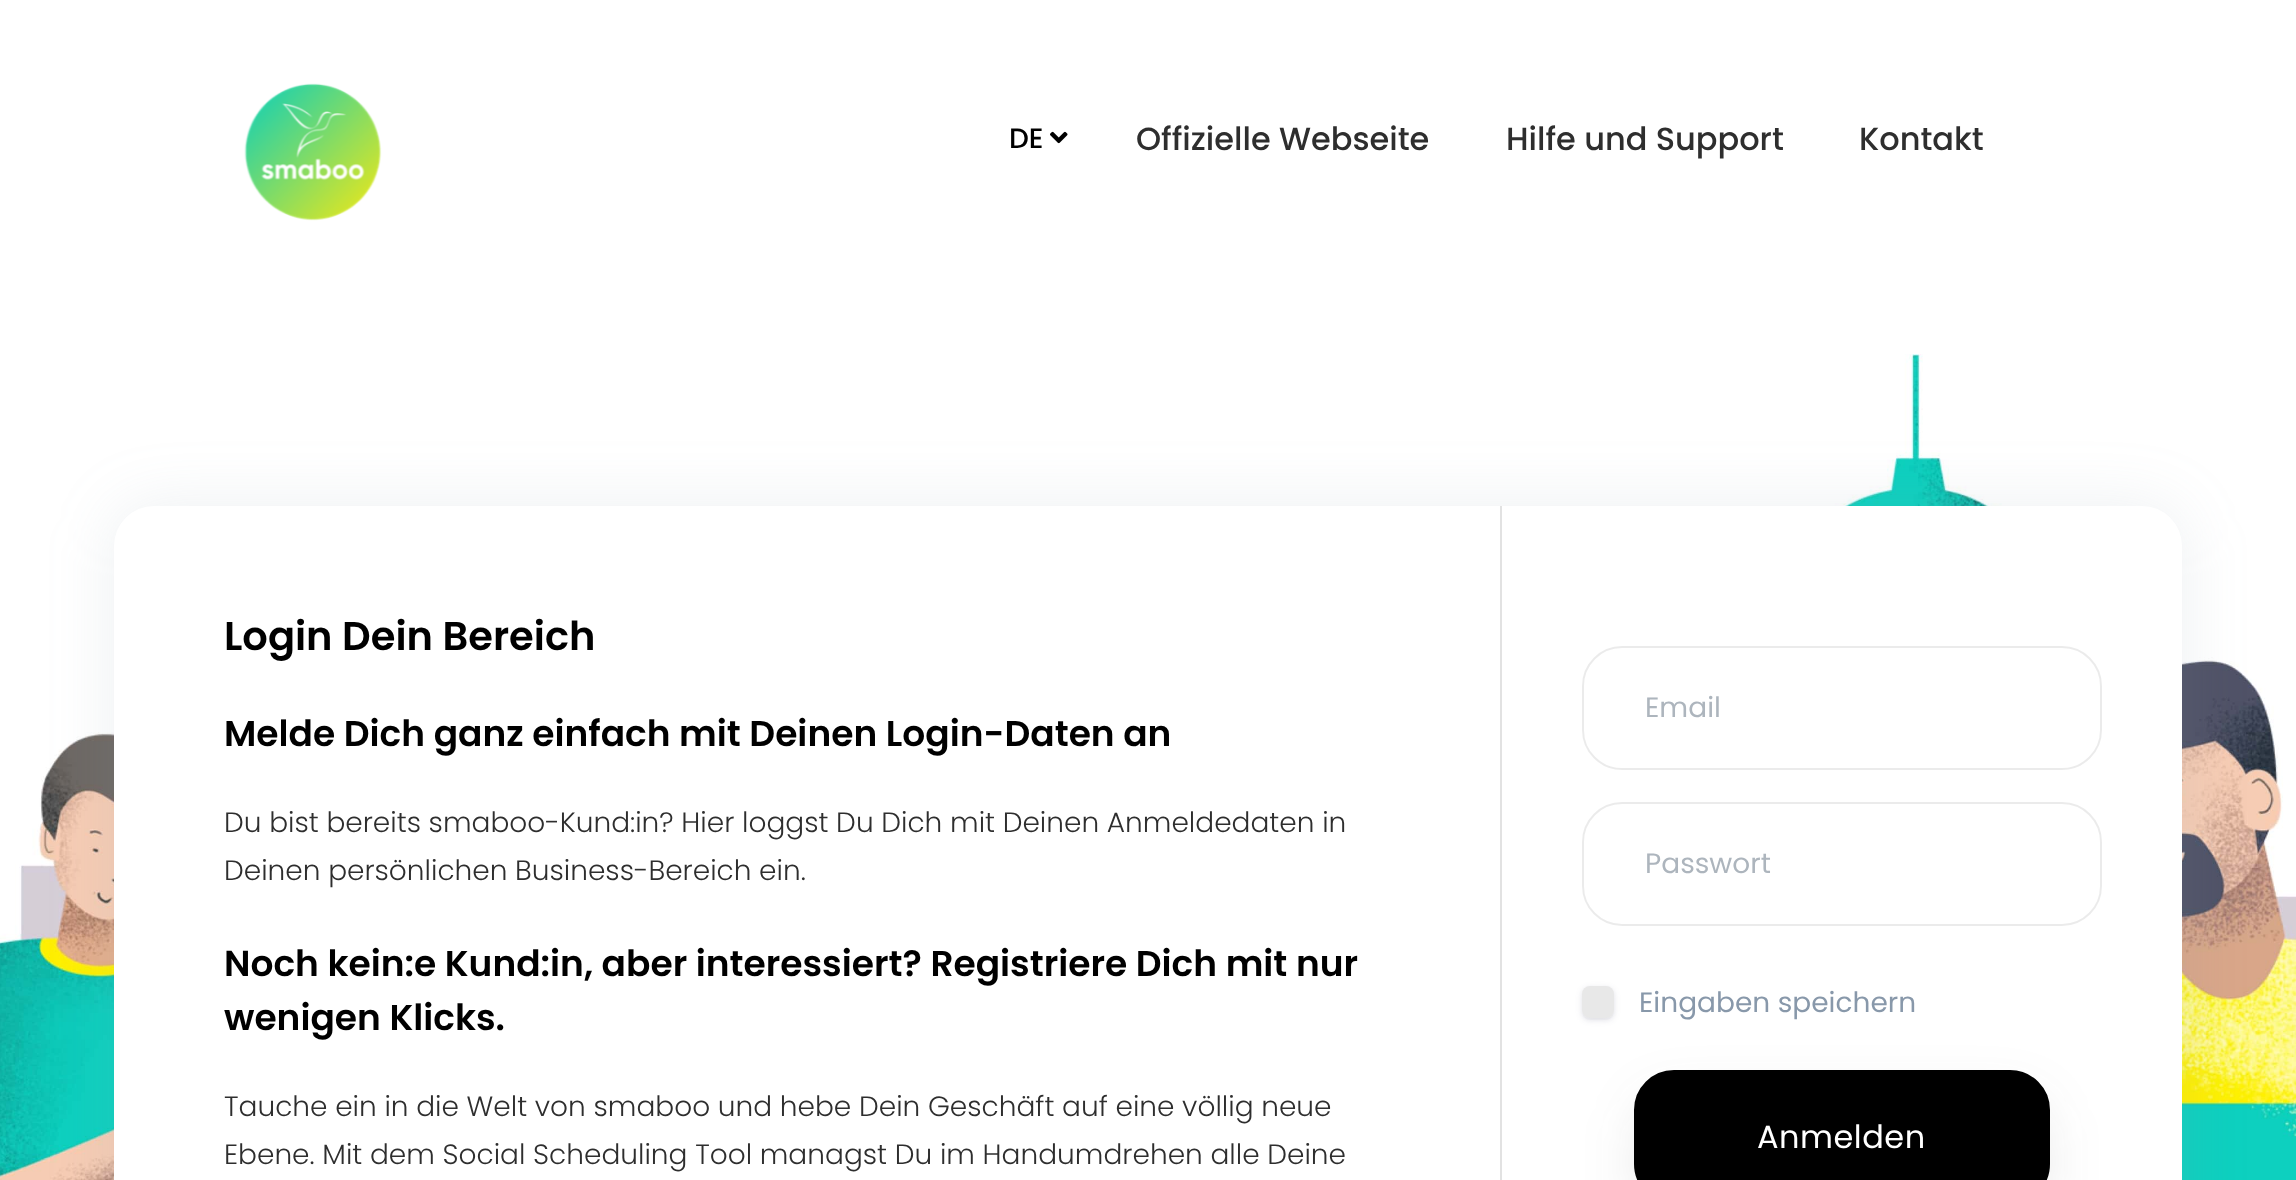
<?xml version="1.0" encoding="UTF-8"?>
<svg xmlns="http://www.w3.org/2000/svg" xmlns:xlink="http://www.w3.org/1999/xlink" width="2296" height="1180">
  <rect width="100%" height="100%" fill="#ffffff" />
  <image x="244" y="83" width="138" height="138" xlink:href="image1.png" />
  <image x="1050" y="131" width="18" height="13" xlink:href="image2.png" />
  <image x="0" y="354" width="2296" height="826" xlink:href="image3.png" />
  <rect x="114" y="506" width="2068" height="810" rx="40" fill="#8898aa" fill-opacity="0.15" filter="blur(32px)" />
  <rect x="114" y="506" width="2068" height="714" rx="40" fill="#ffffff" />
  <rect x="1500" y="506" width="2" height="674" fill="#e2e2e2" />
  <rect x="1583" y="647" width="518" height="122" rx="39" fill="none" stroke="#000000" stroke-opacity="0.08" stroke-width="2" />
  <rect x="1583" y="803" width="518" height="122" rx="39" fill="none" stroke="#000000" stroke-opacity="0.08" stroke-width="2" />
  <path d="M 1582 1010 c 0 11 7 10 16 10 c 9 0 16 1 16 -10 c 0 4.5 -3.5 8 -8 8 h -16 c -4.5 0 -8 -3.5 -8 -8 z" fill="#fafafa" />
  <rect x="1582" y="988" width="32" height="32" rx="8" fill="#32325d" fill-opacity="0.15" filter="blur(3px)" />
  <rect x="1582" y="986" width="32" height="32" rx="8" fill="#e8e8e8" />
  <rect x="1634" y="1094" width="416" height="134" rx="40" fill="#383838" fill-opacity="0.09" filter="blur(26px)" />
  <rect x="1635" y="1071" width="414" height="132" rx="39" fill="#000000" stroke="#000000" stroke-width="2" />
  <text x="1009" y="148" style="font-family: Poppins; font-size: 28px; font-weight: 500; fill: #000000">DE</text>
  <text x="1136" y="150" style="font-family: Poppins; font-size: 32px; font-weight: 500; fill: #2e2e2e">Offizielle Webseite</text>
  <text x="1506" y="150" style="font-family: Poppins; font-size: 32px; font-weight: 500; fill: #2e2e2e">Hilfe und Support</text>
  <text x="1859" y="150" style="font-family: Poppins; font-size: 32px; font-weight: 500; fill: #2e2e2e">Kontakt</text>
  <text x="224" y="650" style="font-family: Poppins; font-size: 40px; font-weight: 600; fill: #000000">Login Dein Bereich</text>
  <text x="224" y="746" style="font-family: Poppins; font-size: 36px; font-weight: 600; fill: #000000">Melde Dich ganz einfach mit Deinen Login-Daten an</text>
  <text x="224" y="832" style="font-family: Poppins; font-size: 28px; font-weight: 300; fill: #2e2e2e">Du bist bereits smaboo-Kund:in? Hier loggst Du Dich mit Deinen Anmeldedaten in</text>
  <text x="224" y="880" style="font-family: Poppins; font-size: 28px; font-weight: 300; fill: #2e2e2e">Deinen persönlichen Business-Bereich ein.</text>
  <text x="224" y="976" style="font-family: Poppins; font-size: 36px; font-weight: 600; fill: #000000">Noch kein:e Kund:in, aber interessiert? Registriere Dich mit nur</text>
  <text x="224" y="1030" style="font-family: Poppins; font-size: 36px; font-weight: 600; fill: #000000">wenigen Klicks.</text>
  <text x="224" y="1116" style="font-family: Poppins; font-size: 28px; font-weight: 300; fill: #2e2e2e">Tauche ein in die Welt von smaboo und hebe Dein Geschäft auf eine völlig neue</text>
  <text x="224" y="1164" style="font-family: Poppins; font-size: 28px; font-weight: 300; fill: #2e2e2e">Ebene. Mit dem Social Scheduling Tool managst Du im Handumdrehen alle Deine</text>
  <text x="1645" y="717" style="font-family: Poppins; font-size: 28px; fill: #adb5bd">Email</text>
  <text x="1645" y="873" style="font-family: Poppins; font-size: 28px; fill: #adb5bd">Passwort</text>
  <text x="1639" y="1012" style="font-family: Poppins; font-size: 28px; fill: #8898aa">Eingaben speichern</text>
  <text x="1757" y="1148" style="font-family: Poppins; font-size: 32px; letter-spacing: 0.5px; fill: #ffffff">Anmelden</text>
</svg>
